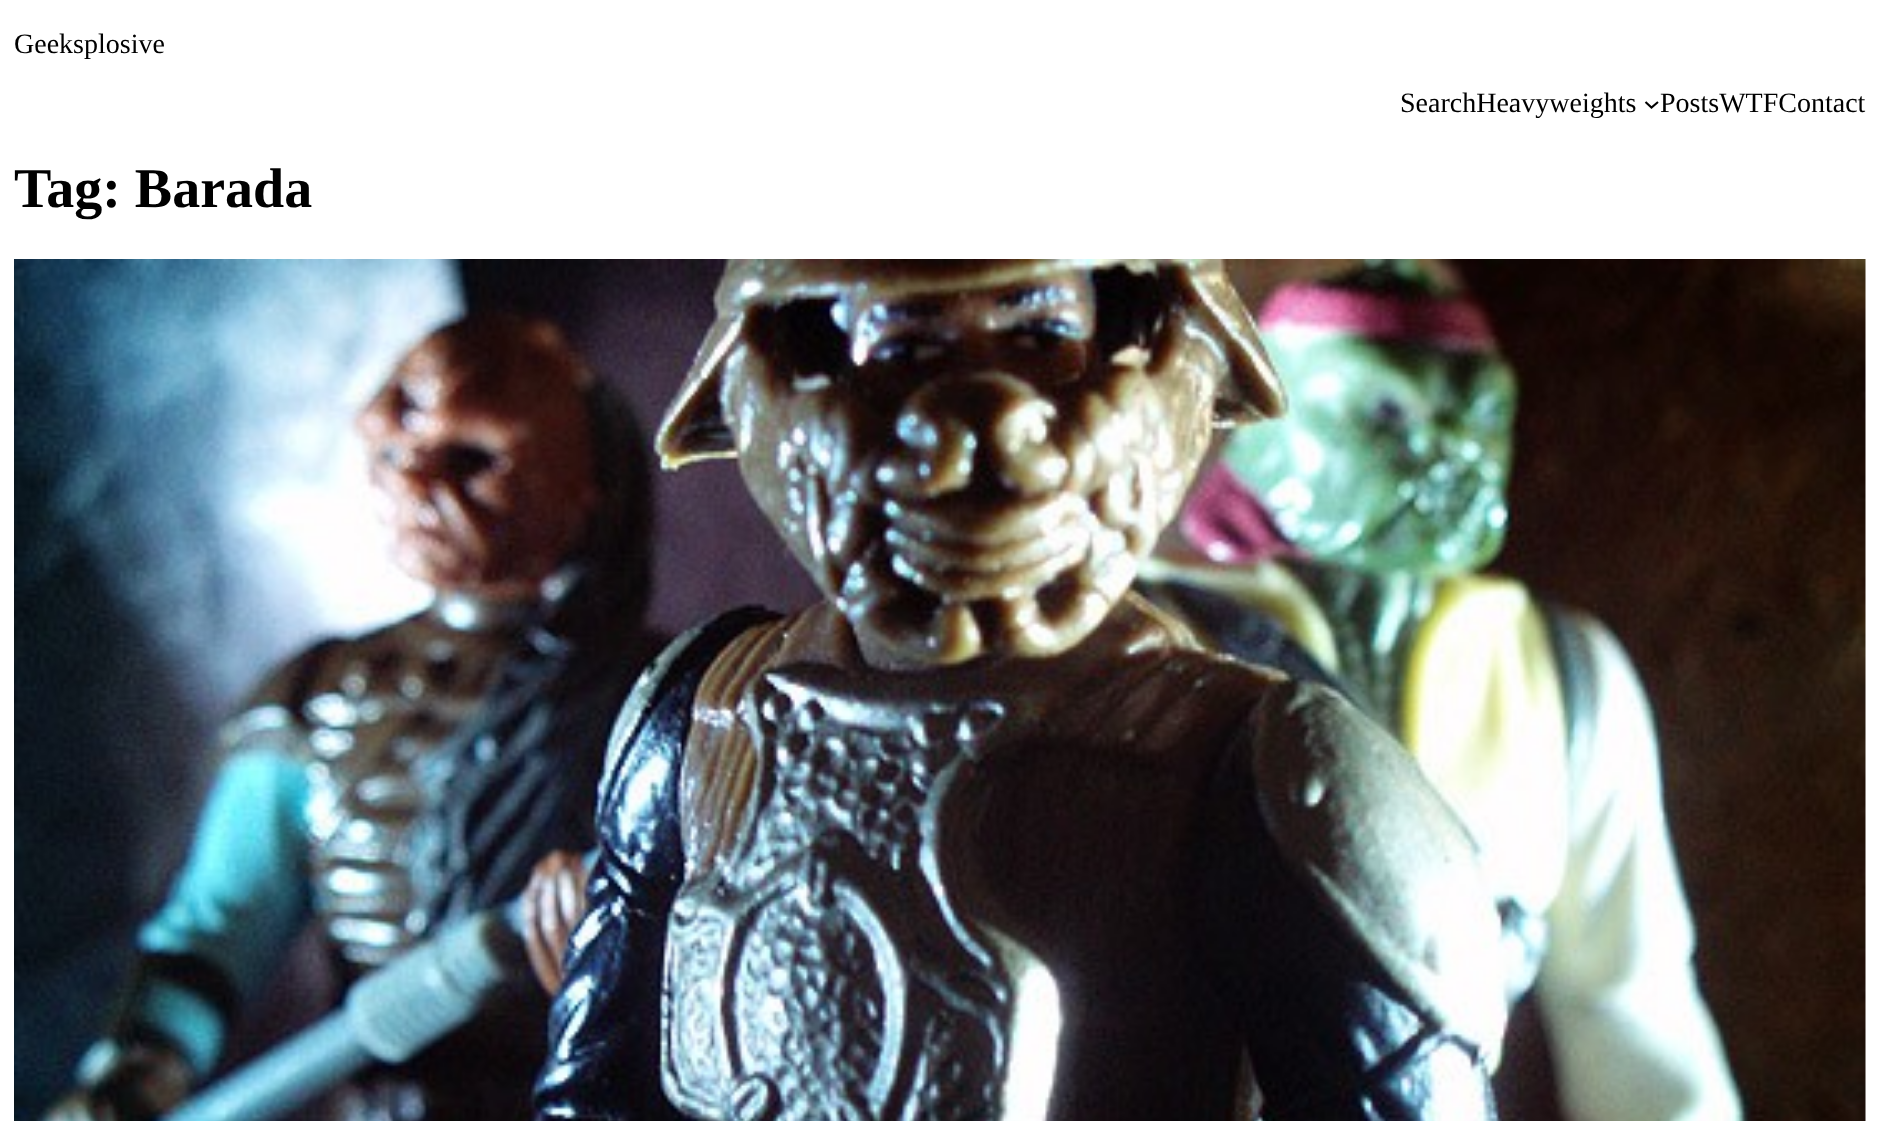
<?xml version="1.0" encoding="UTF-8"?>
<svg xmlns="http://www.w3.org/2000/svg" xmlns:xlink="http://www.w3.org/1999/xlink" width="1879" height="1121">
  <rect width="100%" height="100%" fill="#ffffff" />
  <path d="M 1645.5 102 l 6 5.5 l 6.5 -5.5" fill="none" stroke="#000000" stroke-width="2.1" />
  <image x="14" y="259" width="1852" height="862" xlink:href="image1.png" />
  <text x="14" y="53" style="font-family: Liberation Serif; font-size: 28px; fill: #000000">Geeksplosive</text>
  <text x="1400" y="112" style="font-family: Liberation Serif; font-size: 28px; fill: #000000">SearchHeavyweights</text>
  <text x="1660" y="112" style="font-family: Liberation Serif; font-size: 28px; fill: #000000">PostsWTFContact</text>
  <text x="14" y="207" style="font-family: Liberation Serif; font-size: 56px; font-weight: bold; fill: #000000">Tag: Barada</text>
</svg>
